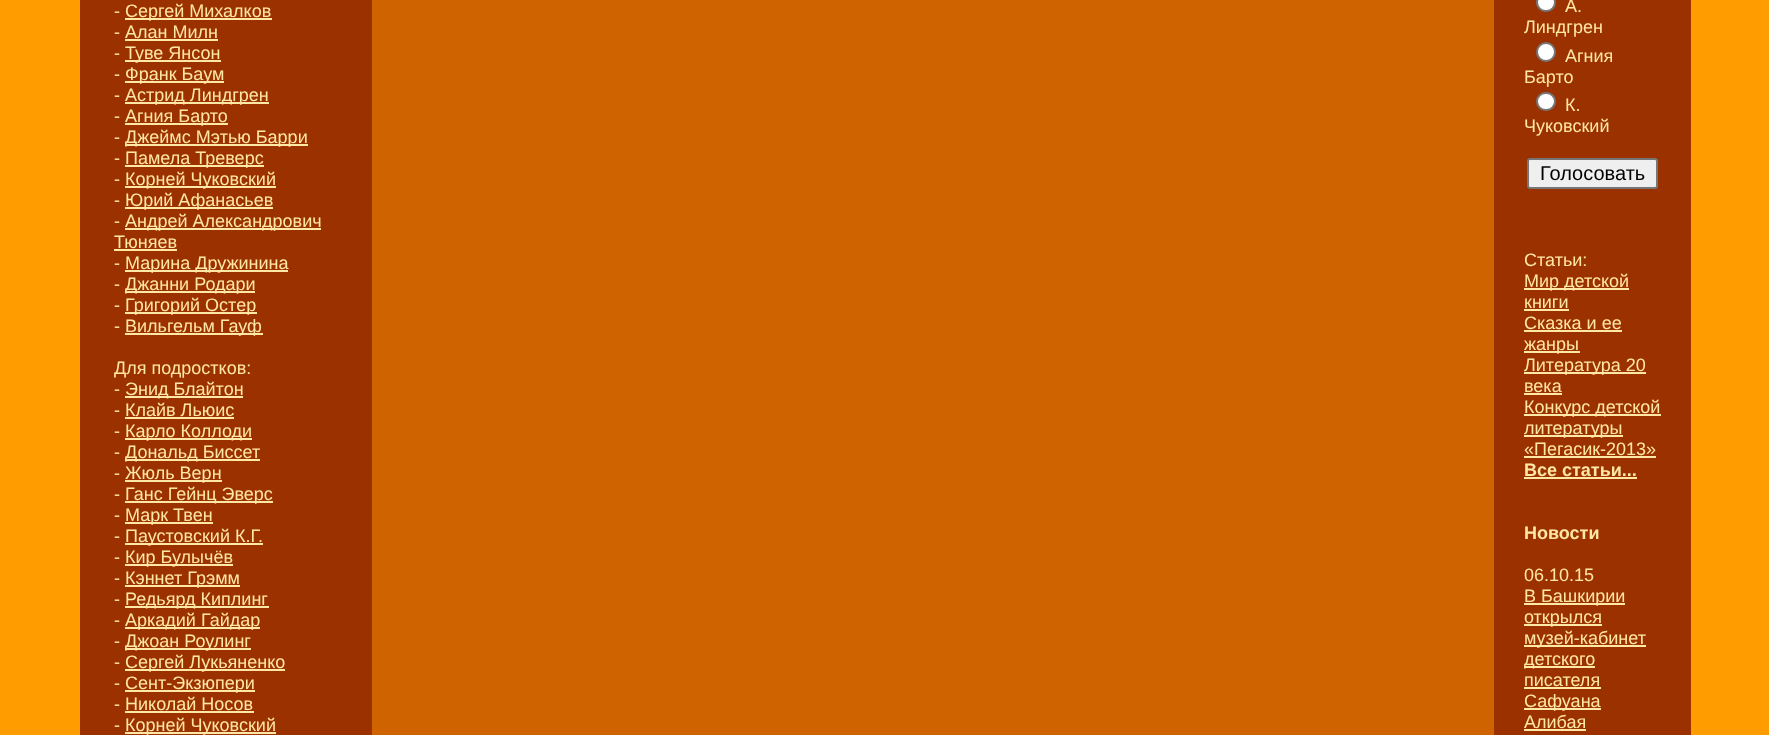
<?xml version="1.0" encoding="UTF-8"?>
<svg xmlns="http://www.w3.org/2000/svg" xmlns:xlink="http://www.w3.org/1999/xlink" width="1769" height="735">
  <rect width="100%" height="100%" fill="#ff9c00" />
  <rect x="80" width="292" height="735" fill="#9c3100" />
  <rect x="372" width="1122" height="735" fill="#ce6300" />
  <rect x="1494" width="197" height="735" fill="#9c3100" />
  <rect x="1537" y="-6" width="18" height="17" rx="8.5" fill="#ffffff" stroke="#767676" stroke-width="2" />
  <circle cx="1546" cy="52" r="9" fill="#ffffff" stroke="#767676" stroke-width="2" />
  <rect x="1537" y="93" width="18" height="17" rx="8.5" fill="#ffffff" stroke="#767676" stroke-width="2" />
  <rect x="1528" y="159" width="129" height="29" rx="2" fill="#efefef" stroke="#767676" stroke-width="2" />
  <rect x="1524" y="288" width="105" height="2" fill="#ffe7a5" />
  <rect x="1524" y="309" width="45" height="2" fill="#ffe7a5" />
  <rect x="1524" y="330" width="98" height="2" fill="#ffe7a5" />
  <rect x="1524" y="351" width="56" height="2" fill="#ffe7a5" />
  <rect x="1524" y="372" width="122" height="2" fill="#ffe7a5" />
  <rect x="1524" y="393" width="38" height="2" fill="#ffe7a5" />
  <rect x="1524" y="414" width="137" height="2" fill="#ffe7a5" />
  <rect x="1524" y="435" width="99" height="2" fill="#ffe7a5" />
  <rect x="1524" y="456" width="132" height="2" fill="#ffe7a5" />
  <rect x="1524" y="477" width="113" height="2" fill="#ffe7a5" />
  <rect x="1524" y="603" width="101" height="2" fill="#ffe7a5" />
  <rect x="1524" y="624" width="78" height="2" fill="#ffe7a5" />
  <rect x="1524" y="645" width="122" height="2" fill="#ffe7a5" />
  <rect x="1524" y="666" width="71" height="2" fill="#ffe7a5" />
  <rect x="1524" y="687" width="77" height="2" fill="#ffe7a5" />
  <rect x="1524" y="708" width="77" height="2" fill="#ffe7a5" />
  <rect x="1524" y="729" width="62" height="2" fill="#ffe7a5" />
  <rect x="125" y="18" width="147" height="2" fill="#ffe7a5" />
  <rect x="125" y="39" width="93" height="2" fill="#ffe7a5" />
  <rect x="125" y="60" width="96" height="2" fill="#ffe7a5" />
  <rect x="125" y="81" width="99" height="2" fill="#ffe7a5" />
  <rect x="125" y="102" width="144" height="2" fill="#ffe7a5" />
  <rect x="125" y="123" width="103" height="2" fill="#ffe7a5" />
  <rect x="125" y="144" width="183" height="2" fill="#ffe7a5" />
  <rect x="125" y="165" width="139" height="2" fill="#ffe7a5" />
  <rect x="125" y="186" width="151" height="2" fill="#ffe7a5" />
  <rect x="125" y="207" width="148" height="2" fill="#ffe7a5" />
  <rect x="125" y="228" width="196" height="2" fill="#ffe7a5" />
  <rect x="114" y="249" width="63" height="2" fill="#ffe7a5" />
  <rect x="125" y="270" width="163" height="2" fill="#ffe7a5" />
  <rect x="125" y="291" width="130" height="2" fill="#ffe7a5" />
  <rect x="125" y="312" width="132" height="2" fill="#ffe7a5" />
  <rect x="125" y="333" width="138" height="2" fill="#ffe7a5" />
  <rect x="125" y="396" width="118" height="2" fill="#ffe7a5" />
  <rect x="125" y="417" width="109" height="2" fill="#ffe7a5" />
  <rect x="125" y="438" width="127" height="2" fill="#ffe7a5" />
  <rect x="125" y="459" width="135" height="2" fill="#ffe7a5" />
  <rect x="125" y="480" width="97" height="2" fill="#ffe7a5" />
  <rect x="125" y="501" width="148" height="2" fill="#ffe7a5" />
  <rect x="125" y="522" width="88" height="2" fill="#ffe7a5" />
  <rect x="125" y="543" width="138" height="2" fill="#ffe7a5" />
  <rect x="125" y="564" width="108" height="2" fill="#ffe7a5" />
  <rect x="125" y="585" width="115" height="2" fill="#ffe7a5" />
  <rect x="125" y="606" width="144" height="2" fill="#ffe7a5" />
  <rect x="125" y="627" width="135" height="2" fill="#ffe7a5" />
  <rect x="125" y="648" width="126" height="2" fill="#ffe7a5" />
  <rect x="125" y="669" width="160" height="2" fill="#ffe7a5" />
  <rect x="125" y="690" width="130" height="2" fill="#ffe7a5" />
  <rect x="125" y="711" width="129" height="2" fill="#ffe7a5" />
  <rect x="125" y="732" width="151" height="2" fill="#ffe7a5" />
  <text x="1565" y="12" style="font-family: Liberation Sans; font-size: 18px; fill: #ffe7a5">А.</text>
  <text x="1524" y="33" style="font-family: Liberation Sans; font-size: 18px; fill: #ffe7a5">Линдгрен</text>
  <text x="1565" y="62" style="font-family: Liberation Sans; font-size: 18px; fill: #ffe7a5">Агния</text>
  <text x="1524" y="83" style="font-family: Liberation Sans; font-size: 18px; fill: #ffe7a5">Барто</text>
  <text x="1565" y="111" style="font-family: Liberation Sans; font-size: 18px; fill: #ffe7a5">К.</text>
  <text x="1524" y="132" style="font-family: Liberation Sans; font-size: 18px; fill: #ffe7a5">Чуковский</text>
  <text x="1540" y="180" style="font-family: Liberation Sans; font-size: 20px; fill: #000000">Голосовать</text>
  <text x="1524" y="266" style="font-family: Liberation Sans; font-size: 18px; fill: #ffe7a5">Статьи:</text>
  <text x="1524" y="287" style="font-family: Liberation Sans; font-size: 18px; fill: #ffe7a5">Мир детской</text>
  <text x="1524" y="308" style="font-family: Liberation Sans; font-size: 18px; fill: #ffe7a5">книги</text>
  <text x="1524" y="329" style="font-family: Liberation Sans; font-size: 18px; fill: #ffe7a5">Сказка и ее</text>
  <text x="1524" y="350" style="font-family: Liberation Sans; font-size: 18px; fill: #ffe7a5">жанры</text>
  <text x="1524" y="371" style="font-family: Liberation Sans; font-size: 18px; fill: #ffe7a5">Литература 20</text>
  <text x="1524" y="392" style="font-family: Liberation Sans; font-size: 18px; fill: #ffe7a5">века</text>
  <text x="1524" y="413" style="font-family: Liberation Sans; font-size: 18px; fill: #ffe7a5">Конкурс детской</text>
  <text x="1524" y="434" style="font-family: Liberation Sans; font-size: 18px; fill: #ffe7a5">литературы</text>
  <text x="1524" y="455" style="font-family: Liberation Sans; font-size: 18px; fill: #ffe7a5">«Пегасик-2013»</text>
  <text x="1524" y="476" style="font-family: Liberation Sans; font-size: 18px; font-weight: bold; fill: #ffe7a5">Все статьи...</text>
  <text x="1524" y="539" style="font-family: Liberation Sans; font-size: 18px; font-weight: bold; fill: #ffe7a5">Новости</text>
  <text x="1524" y="581" style="font-family: Liberation Sans; font-size: 18px; fill: #ffe7a5">06.10.15</text>
  <text x="1524" y="602" style="font-family: Liberation Sans; font-size: 18px; fill: #ffe7a5">В Башкирии</text>
  <text x="1524" y="623" style="font-family: Liberation Sans; font-size: 18px; fill: #ffe7a5">открылся</text>
  <text x="1524" y="644" style="font-family: Liberation Sans; font-size: 18px; fill: #ffe7a5">музей-кабинет</text>
  <text x="1524" y="665" style="font-family: Liberation Sans; font-size: 18px; fill: #ffe7a5">детского</text>
  <text x="1524" y="686" style="font-family: Liberation Sans; font-size: 18px; fill: #ffe7a5">писателя</text>
  <text x="1524" y="707" style="font-family: Liberation Sans; font-size: 18px; fill: #ffe7a5">Сафуана</text>
  <text x="1524" y="728" style="font-family: Liberation Sans; font-size: 18px; fill: #ffe7a5">Алибая</text>
  <text x="114" y="17" style="font-family: Liberation Sans; font-size: 18px; fill: #ffe7a5">-</text>
  <text x="125" y="17" style="font-family: Liberation Sans; font-size: 18px; fill: #ffe7a5">Сергей Михалков</text>
  <text x="114" y="38" style="font-family: Liberation Sans; font-size: 18px; fill: #ffe7a5">- Алан Милн</text>
  <text x="114" y="59" style="font-family: Liberation Sans; font-size: 18px; fill: #ffe7a5">-</text>
  <text x="125" y="59" style="font-family: Liberation Sans; font-size: 18px; fill: #ffe7a5">Туве Янсон</text>
  <text x="114" y="80" style="font-family: Liberation Sans; font-size: 18px; fill: #ffe7a5">-</text>
  <text x="125" y="80" style="font-family: Liberation Sans; font-size: 18px; fill: #ffe7a5">Франк Баум</text>
  <text x="114" y="101" style="font-family: Liberation Sans; font-size: 18px; fill: #ffe7a5">-</text>
  <text x="125" y="101" style="font-family: Liberation Sans; font-size: 18px; fill: #ffe7a5">Астрид Линдгрен</text>
  <text x="114" y="122" style="font-family: Liberation Sans; font-size: 18px; fill: #ffe7a5">-</text>
  <text x="125" y="122" style="font-family: Liberation Sans; font-size: 18px; fill: #ffe7a5">Агния Барто</text>
  <text x="114" y="143" style="font-family: Liberation Sans; font-size: 18px; fill: #ffe7a5">-</text>
  <text x="125" y="143" style="font-family: Liberation Sans; font-size: 18px; fill: #ffe7a5">Джеймс Мэтью Барри</text>
  <text x="114" y="164" style="font-family: Liberation Sans; font-size: 18px; fill: #ffe7a5">-</text>
  <text x="125" y="164" style="font-family: Liberation Sans; font-size: 18px; fill: #ffe7a5">Памела Треверс</text>
  <text x="114" y="185" style="font-family: Liberation Sans; font-size: 18px; fill: #ffe7a5">-</text>
  <text x="125" y="185" style="font-family: Liberation Sans; font-size: 18px; fill: #ffe7a5">Корней Чуковский</text>
  <text x="114" y="206" style="font-family: Liberation Sans; font-size: 18px; fill: #ffe7a5">-</text>
  <text x="125" y="206" style="font-family: Liberation Sans; font-size: 18px; fill: #ffe7a5">Юрий Афанасьев</text>
  <text x="114" y="227" style="font-family: Liberation Sans; font-size: 18px; fill: #ffe7a5">-</text>
  <text x="125" y="227" style="font-family: Liberation Sans; font-size: 18px; fill: #ffe7a5">Андрей Александрович</text>
  <text x="114" y="248" style="font-family: Liberation Sans; font-size: 18px; fill: #ffe7a5">Тюняев</text>
  <text x="114" y="269" style="font-family: Liberation Sans; font-size: 18px; fill: #ffe7a5">-</text>
  <text x="125" y="269" style="font-family: Liberation Sans; font-size: 18px; fill: #ffe7a5">Марина Дружинина</text>
  <text x="114" y="290" style="font-family: Liberation Sans; font-size: 18px; fill: #ffe7a5">-</text>
  <text x="125" y="290" style="font-family: Liberation Sans; font-size: 18px; fill: #ffe7a5">Джанни Родари</text>
  <text x="114" y="311" style="font-family: Liberation Sans; font-size: 18px; fill: #ffe7a5">-</text>
  <text x="125" y="311" style="font-family: Liberation Sans; font-size: 18px; fill: #ffe7a5">Григорий Остер</text>
  <text x="114" y="332" style="font-family: Liberation Sans; font-size: 18px; fill: #ffe7a5">-</text>
  <text x="125" y="332" style="font-family: Liberation Sans; font-size: 18px; fill: #ffe7a5">Вильгельм Гауф</text>
  <text x="114" y="374" style="font-family: Liberation Sans; font-size: 18px; fill: #ffe7a5">Для подростков:</text>
  <text x="114" y="395" style="font-family: Liberation Sans; font-size: 18px; fill: #ffe7a5">-</text>
  <text x="125" y="395" style="font-family: Liberation Sans; font-size: 18px; fill: #ffe7a5">Энид Блайтон</text>
  <text x="114" y="416" style="font-family: Liberation Sans; font-size: 18px; fill: #ffe7a5">- Клайв Льюис</text>
  <text x="114" y="437" style="font-family: Liberation Sans; font-size: 18px; fill: #ffe7a5">-</text>
  <text x="125" y="437" style="font-family: Liberation Sans; font-size: 18px; fill: #ffe7a5">Карло Коллоди</text>
  <text x="114" y="458" style="font-family: Liberation Sans; font-size: 18px; fill: #ffe7a5">-</text>
  <text x="125" y="458" style="font-family: Liberation Sans; font-size: 18px; fill: #ffe7a5">Дональд Биссет</text>
  <text x="114" y="479" style="font-family: Liberation Sans; font-size: 18px; fill: #ffe7a5">-</text>
  <text x="125" y="479" style="font-family: Liberation Sans; font-size: 18px; fill: #ffe7a5">Жюль Верн</text>
  <text x="114" y="500" style="font-family: Liberation Sans; font-size: 18px; fill: #ffe7a5">-</text>
  <text x="125" y="500" style="font-family: Liberation Sans; font-size: 18px; fill: #ffe7a5">Ганс Гейнц Эверс</text>
  <text x="114" y="521" style="font-family: Liberation Sans; font-size: 18px; fill: #ffe7a5">-</text>
  <text x="125" y="521" style="font-family: Liberation Sans; font-size: 18px; fill: #ffe7a5">Марк Твен</text>
  <text x="114" y="542" style="font-family: Liberation Sans; font-size: 18px; fill: #ffe7a5">-</text>
  <text x="125" y="542" style="font-family: Liberation Sans; font-size: 18px; fill: #ffe7a5">Паустовский К.Г.</text>
  <text x="114" y="563" style="font-family: Liberation Sans; font-size: 18px; fill: #ffe7a5">-</text>
  <text x="125" y="563" style="font-family: Liberation Sans; font-size: 18px; fill: #ffe7a5">Кир Булычёв</text>
  <text x="114" y="584" style="font-family: Liberation Sans; font-size: 18px; fill: #ffe7a5">-</text>
  <text x="125" y="584" style="font-family: Liberation Sans; font-size: 18px; fill: #ffe7a5">Кэннет Грэмм</text>
  <text x="114" y="605" style="font-family: Liberation Sans; font-size: 18px; fill: #ffe7a5">-</text>
  <text x="125" y="605" style="font-family: Liberation Sans; font-size: 18px; fill: #ffe7a5">Редьярд Киплинг</text>
  <text x="114" y="626" style="font-family: Liberation Sans; font-size: 18px; fill: #ffe7a5">-</text>
  <text x="125" y="626" style="font-family: Liberation Sans; font-size: 18px; fill: #ffe7a5">Аркадий Гайдар</text>
  <text x="114" y="647" style="font-family: Liberation Sans; font-size: 18px; fill: #ffe7a5">-</text>
  <text x="125" y="647" style="font-family: Liberation Sans; font-size: 18px; fill: #ffe7a5">Джоан Роулинг</text>
  <text x="114" y="668" style="font-family: Liberation Sans; font-size: 18px; fill: #ffe7a5">-</text>
  <text x="125" y="668" style="font-family: Liberation Sans; font-size: 18px; fill: #ffe7a5">Сергей Лукьяненко</text>
  <text x="114" y="689" style="font-family: Liberation Sans; font-size: 18px; fill: #ffe7a5">-</text>
  <text x="125" y="689" style="font-family: Liberation Sans; font-size: 18px; fill: #ffe7a5">Сент-Экзюпери</text>
  <text x="114" y="710" style="font-family: Liberation Sans; font-size: 18px; fill: #ffe7a5">- Николай Носов</text>
  <text x="114" y="731" style="font-family: Liberation Sans; font-size: 18px; fill: #ffe7a5">-</text>
  <text x="125" y="731" style="font-family: Liberation Sans; font-size: 18px; fill: #ffe7a5">Корней Чуковский</text>
</svg>
